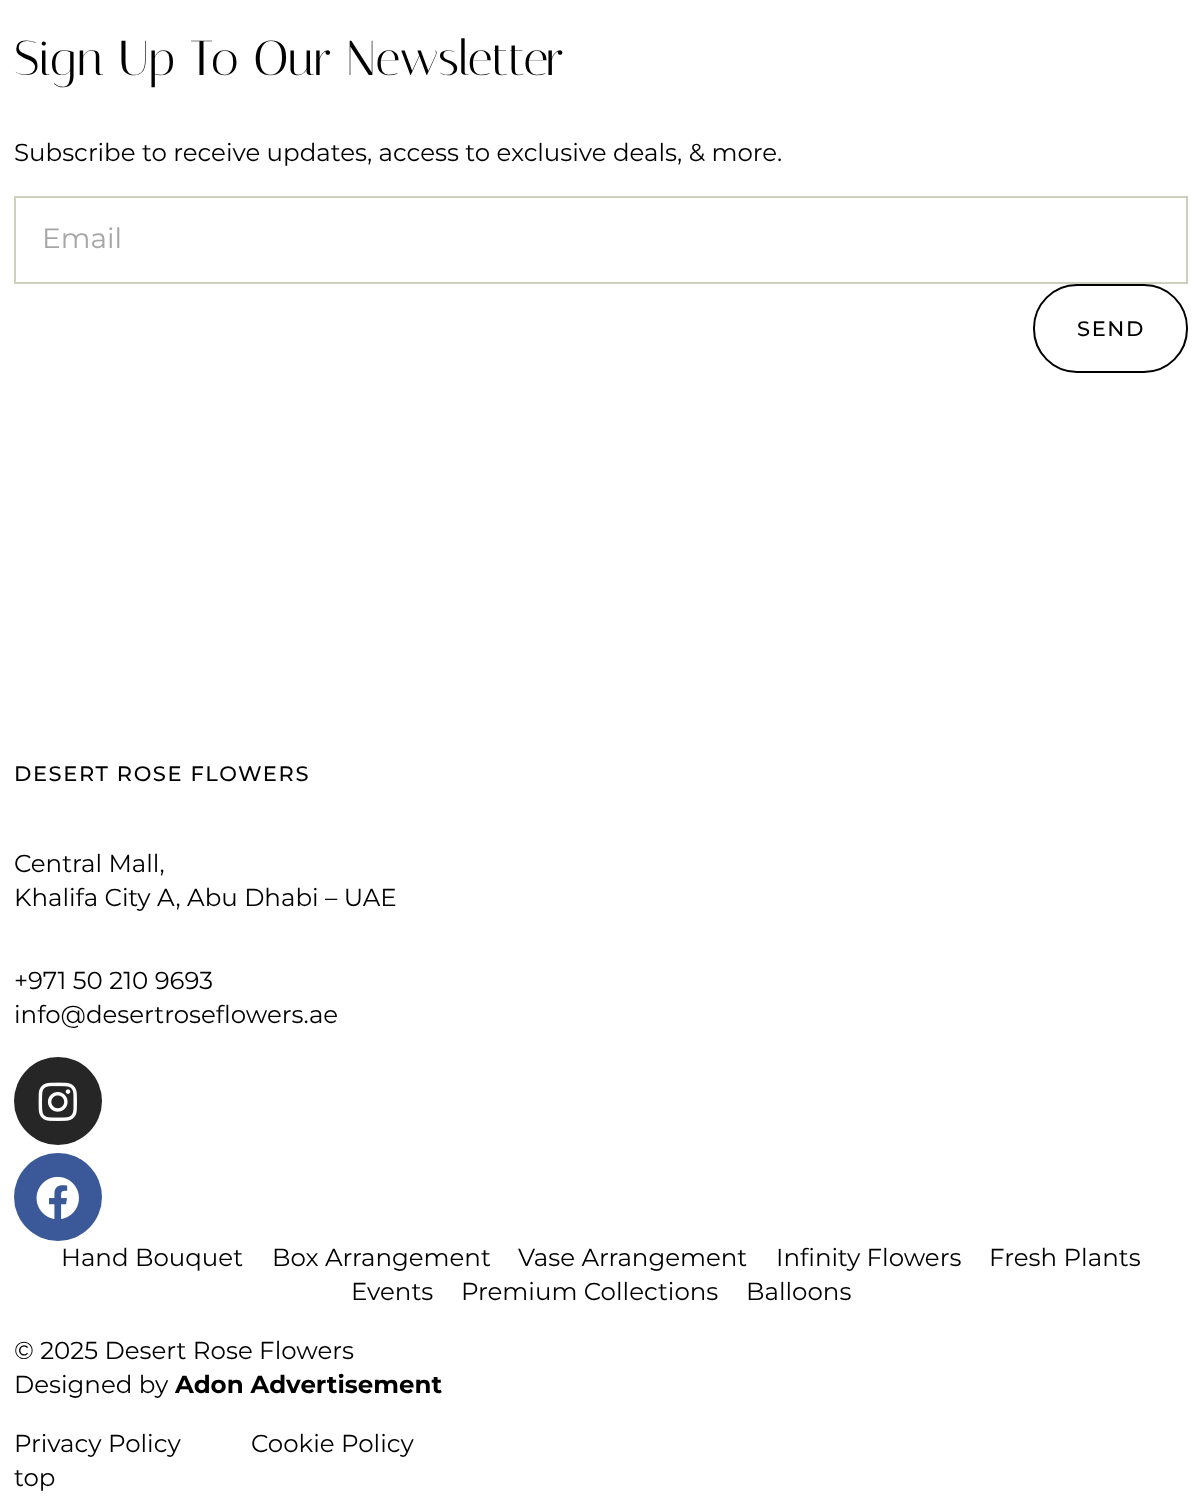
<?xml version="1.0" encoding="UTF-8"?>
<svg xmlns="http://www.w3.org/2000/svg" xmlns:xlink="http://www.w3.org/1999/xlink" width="1201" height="1509">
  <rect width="100%" height="100%" fill="#ffffff" />
  <rect x="15" y="197" width="1172" height="86" fill="none" stroke="#ced0bb" stroke-width="2" />
  <rect x="1034" y="285" width="153" height="87" rx="43" fill="none" stroke="#000000" stroke-width="2" />
  <circle cx="58" cy="1101" r="44" fill="#262626" />
  <image x="38" y="1082" width="39" height="39" xlink:href="image1.png" />
  <circle cx="58" cy="1197" r="44" fill="#3b5998" />
  <image x="36" y="1176" width="43" height="43" xlink:href="image2.png" />
  <text x="14" y="75" style="font-family: Italiana; font-size: 49px; fill: #000000">Sign Up To Our Newsletter</text>
  <text x="14" y="161" style="font-family: Montserrat; font-size: 24.5px; fill: #000000">Subscribe to receive updates, access to exclusive deals, &amp; more.</text>
  <text x="42" y="248" style="font-family: Montserrat; font-size: 28px; fill: #a6a6a6">Email</text>
  <text x="1077" y="336" style="font-family: Montserrat; font-size: 21px; font-weight: 500; letter-spacing: 1.6px; fill: #000000">SEND</text>
  <text x="14" y="781" style="font-family: Montserrat; font-size: 21px; font-weight: 500; letter-spacing: 1.6px; fill: #000000">DESERT ROSE FLOWERS</text>
  <text x="14" y="872" style="font-family: Montserrat; font-size: 24.5px; fill: #000000">Central Mall,</text>
  <text x="14" y="906" style="font-family: Montserrat; font-size: 24.5px; fill: #000000">Khalifa City A, Abu Dhabi – UAE</text>
  <text x="14" y="989" style="font-family: Montserrat; font-size: 24.5px; fill: #000000">+971 50 210 9693</text>
  <text x="14" y="1023" style="font-family: Montserrat; font-size: 24.5px; fill: #000000">info@desertroseflowers.ae</text>
  <text x="61" y="1266" style="font-family: Montserrat; font-size: 24.5px; fill: #000000">Hand Bouquet</text>
  <text x="272" y="1266" style="font-family: Montserrat; font-size: 24.5px; fill: #000000">Box Arrangement</text>
  <text x="518" y="1266" style="font-family: Montserrat; font-size: 24.5px; fill: #000000">Vase Arrangement</text>
  <text x="776" y="1266" style="font-family: Montserrat; font-size: 24.5px; fill: #000000">Infinity Flowers</text>
  <text x="989" y="1266" style="font-family: Montserrat; font-size: 24.5px; fill: #000000">Fresh Plants</text>
  <text x="351" y="1300" style="font-family: Montserrat; font-size: 24.5px; fill: #000000">Events</text>
  <text x="461" y="1300" style="font-family: Montserrat; font-size: 24.5px; fill: #000000">Premium Collections</text>
  <text x="746" y="1300" style="font-family: Montserrat; font-size: 24.5px; fill: #000000">Balloons</text>
  <text x="14" y="1359" style="font-family: Montserrat; font-size: 24.5px; fill: #000000">© 2025 Desert Rose Flowers</text>
  <text x="14" y="1393" style="font-family: Montserrat; font-size: 24.5px; fill: #000000">Designed by</text>
  <text x="175" y="1393" style="font-family: Montserrat; font-size: 24.5px; font-weight: bold; fill: #000000">Adon Advertisement</text>
  <text x="14" y="1452" style="font-family: Montserrat; font-size: 24.5px; fill: #000000">Privacy Policy</text>
  <text x="251" y="1452" style="font-family: Montserrat; font-size: 24.5px; fill: #000000">Cookie Policy</text>
  <text x="14" y="1486" style="font-family: Montserrat; font-size: 24.5px; fill: #000000">top</text>
</svg>
